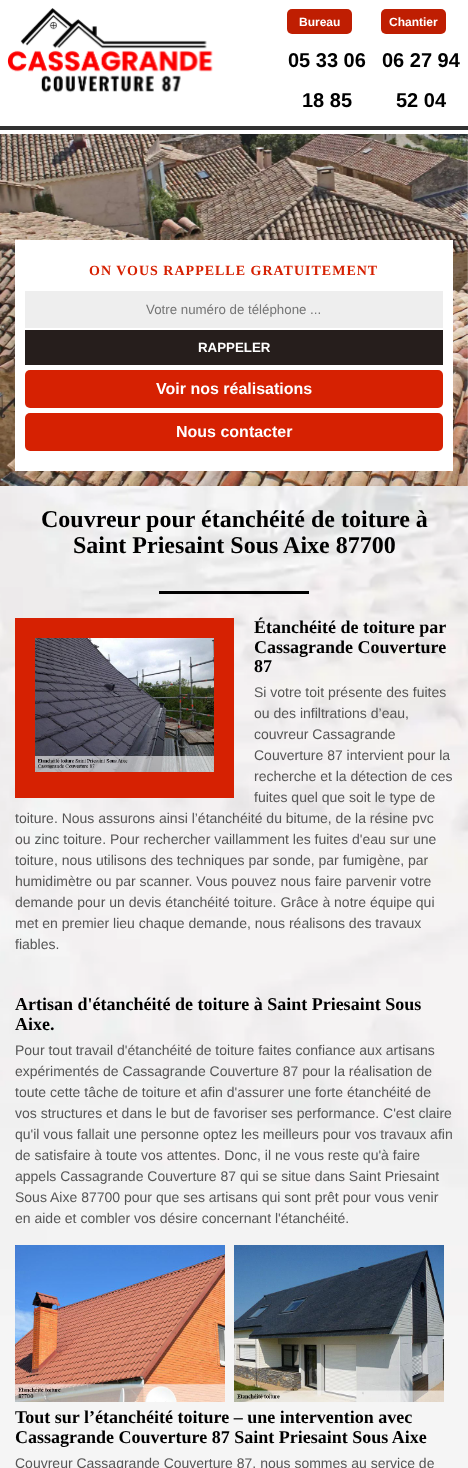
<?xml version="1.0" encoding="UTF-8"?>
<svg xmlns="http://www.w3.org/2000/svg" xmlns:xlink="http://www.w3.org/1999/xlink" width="468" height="1468">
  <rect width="100%" height="100%" fill="#ffffff" />
  <image x="0" y="134" width="468" height="1334" xlink:href="image1.png" />
  <image x="7" y="8" width="206" height="85" xlink:href="image2.png" />
  <rect x="287" y="9" width="65" height="25" rx="5" fill="#bf1e02" />
  <rect x="381" y="9" width="65" height="25" rx="5" fill="#bf1e02" />
  <rect y="126" width="468" height="4" fill="#313131" />
  <image x="0" y="134" width="468" height="352" xlink:href="image3.png" />
  <rect x="15" y="240" width="438" height="231" fill="#ffffff" />
  <rect x="25" y="291" width="418" height="37" fill="#eeeeee" />
  <rect x="25" y="330" width="418" height="35" fill="#261e1c" />
  <rect x="25" y="370" width="418" height="38" rx="5" fill="#d62102" />
  <rect x="25" y="413" width="418" height="38" rx="5" fill="#d62102" />
  <rect x="159" y="591" width="150" height="3" fill="#000000" />
  <rect x="15" y="618" width="219" height="180" fill="#d62102" />
  <image x="35" y="638" width="179" height="134" xlink:href="image4.png" />
  <image x="15" y="1245" width="210" height="157" xlink:href="image5.png" />
  <image x="234" y="1245" width="210" height="157" xlink:href="image6.png" />
  <text x="299" y="26" style="font-family: Liberation Sans; font-size: 12px; font-weight: bold; fill: #ffffff">Bureau</text>
  <text x="288" y="67" style="font-family: Liberation Sans; font-size: 20px; font-weight: bold; fill: #000000">05 33 06</text>
  <text x="302" y="107" style="font-family: Liberation Sans; font-size: 20px; font-weight: bold; fill: #000000">18 85</text>
  <text x="389" y="26" style="font-family: Liberation Sans; font-size: 12px; font-weight: bold; fill: #ffffff">Chantier</text>
  <text x="382" y="67" style="font-family: Liberation Sans; font-size: 20px; font-weight: bold; fill: #000000">06 27 94</text>
  <text x="396" y="107" style="font-family: Liberation Sans; font-size: 20px; font-weight: bold; fill: #000000">52 04</text>
  <text x="89" y="275" style="font-family: Liberation Serif; font-size: 14px; font-weight: bold; letter-spacing: 1px; fill: #d62102">ON VOUS RAPPELLE GRATUITEMENT</text>
  <text x="146" y="314" style="font-family: Liberation Sans; font-size: 13.3px; fill: #757575">Votre numéro de téléphone ...</text>
  <text x="198" y="352" style="font-family: Liberation Sans; font-size: 13.3px; font-weight: bold; fill: #ffffff">RAPPELER</text>
  <text x="156" y="394" style="font-family: Liberation Sans; font-size: 16px; font-weight: bold; fill: #ffffff">Voir nos réalisations</text>
  <text x="176" y="437" style="font-family: Liberation Sans; font-size: 16px; font-weight: bold; fill: #ffffff">Nous contacter</text>
  <text x="41" y="527" style="font-family: Liberation Serif; font-size: 24px; font-weight: bold; fill: #000000">Couvreur pour étanchéité de toiture à</text>
  <text x="73" y="553" style="font-family: Liberation Serif; font-size: 24px; font-weight: bold; fill: #000000">Saint Priesaint Sous Aixe 87700</text>
  <text x="254" y="633" style="font-family: Liberation Serif; font-size: 18px; font-weight: bold; fill: #000000">Étanchéité de toiture par</text>
  <text x="254" y="653" style="font-family: Liberation Serif; font-size: 18px; font-weight: bold; fill: #000000">Cassagrande Couverture</text>
  <text x="254" y="672" style="font-family: Liberation Serif; font-size: 18px; font-weight: bold; fill: #000000">87</text>
  <text x="254" y="697" style="font-family: Liberation Sans; font-size: 14px; fill: #555555">Si votre toit présente des fuites</text>
  <text x="254" y="718" style="font-family: Liberation Sans; font-size: 14px; fill: #555555">ou des infiltrations d’eau,</text>
  <text x="254" y="739" style="font-family: Liberation Sans; font-size: 14px; fill: #555555">couvreur Cassagrande</text>
  <text x="254" y="760" style="font-family: Liberation Sans; font-size: 14px; fill: #555555">Couverture 87 intervient pour la</text>
  <text x="254" y="781" style="font-family: Liberation Sans; font-size: 14px; fill: #555555">recherche et la détection de ces</text>
  <text x="254" y="802" style="font-family: Liberation Sans; font-size: 14px; fill: #555555">fuites quel que soit le type de</text>
  <text x="15" y="823" style="font-family: Liberation Sans; font-size: 14px; fill: #555555">toiture. Nous assurons ainsi l’étanchéité du bitume, de la résine pvc</text>
  <text x="15" y="844" style="font-family: Liberation Sans; font-size: 14px; fill: #555555">ou zinc toiture. Pour rechercher vaillamment les fuites d'eau sur une</text>
  <text x="15" y="865" style="font-family: Liberation Sans; font-size: 14px; fill: #555555">toiture, nous utilisons des techniques par sonde, par fumigène, par</text>
  <text x="15" y="886" style="font-family: Liberation Sans; font-size: 14px; fill: #555555">humidimètre ou par scanner. Vous pouvez nous faire parvenir votre</text>
  <text x="15" y="907" style="font-family: Liberation Sans; font-size: 14px; fill: #555555">demande pour un devis étanchéité toiture. Grâce à notre équipe qui</text>
  <text x="15" y="928" style="font-family: Liberation Sans; font-size: 14px; fill: #555555">met en premier lieu chaque demande, nous réalisons des travaux</text>
  <text x="15" y="949" style="font-family: Liberation Sans; font-size: 14px; fill: #555555">fiables.</text>
  <text x="15" y="1010" style="font-family: Liberation Serif; font-size: 18px; font-weight: bold; fill: #000000">Artisan d'étanchéité de toiture à Saint Priesaint Sous</text>
  <text x="15" y="1030" style="font-family: Liberation Serif; font-size: 18px; font-weight: bold; fill: #000000">Aixe.</text>
  <text x="15" y="1055" style="font-family: Liberation Sans; font-size: 14px; fill: #555555">Pour tout travail d'étanchéité de toiture faites confiance aux artisans</text>
  <text x="15" y="1076" style="font-family: Liberation Sans; font-size: 14px; fill: #555555">expérimentés de Cassagrande Couverture 87 pour la réalisation de</text>
  <text x="15" y="1097" style="font-family: Liberation Sans; font-size: 14px; fill: #555555">toute cette tâche de toiture et afin d'assurer une forte étanchéité de</text>
  <text x="15" y="1118" style="font-family: Liberation Sans; font-size: 14px; fill: #555555">vos structures et dans le but de favoriser ses performance. C'est claire</text>
  <text x="15" y="1139" style="font-family: Liberation Sans; font-size: 14px; fill: #555555">qu'il vous fallait une personne optez les meilleurs pour vos travaux afin</text>
  <text x="15" y="1160" style="font-family: Liberation Sans; font-size: 14px; fill: #555555">de satisfaire à toute vos attentes. Donc, il ne vous reste qu'à faire</text>
  <text x="15" y="1181" style="font-family: Liberation Sans; font-size: 14px; fill: #555555">appels Cassagrande Couverture 87 qui se situe dans Saint Priesaint</text>
  <text x="15" y="1202" style="font-family: Liberation Sans; font-size: 14px; fill: #555555">Sous Aixe 87700 pour que ses artisans qui sont prêt pour vous venir</text>
  <text x="15" y="1223" style="font-family: Liberation Sans; font-size: 14px; fill: #555555">en aide et combler vos désire concernant l'étanchéité.</text>
  <text x="15" y="1423" style="font-family: Liberation Serif; font-size: 18px; font-weight: bold; fill: #000000">Tout sur l’étanchéité toiture – une intervention avec</text>
  <text x="15" y="1443" style="font-family: Liberation Serif; font-size: 18px; font-weight: bold; fill: #000000">Cassagrande Couverture 87 Saint Priesaint Sous Aixe</text>
  <text x="15" y="1468" style="font-family: Liberation Sans; font-size: 14px; fill: #555555">Couvreur Cassagrande Couverture 87, nous sommes au service de</text>
</svg>
